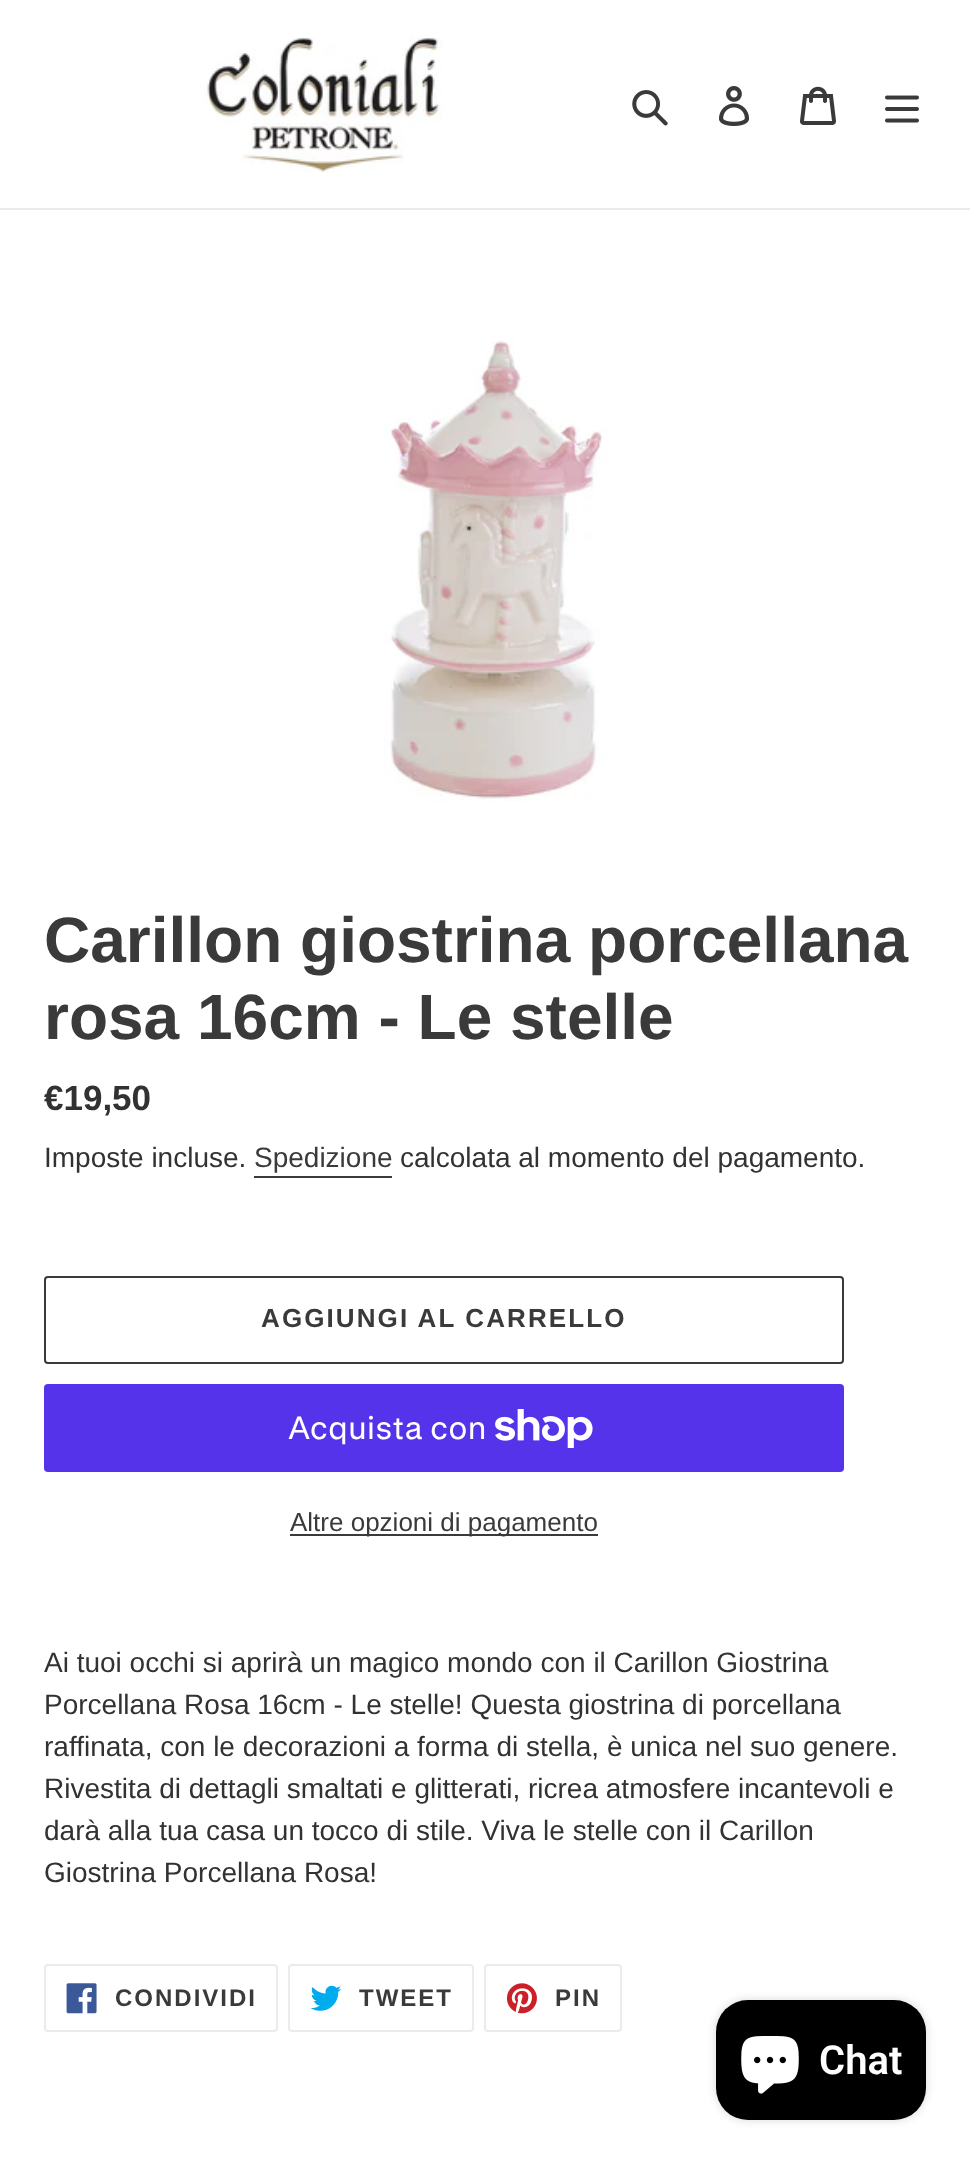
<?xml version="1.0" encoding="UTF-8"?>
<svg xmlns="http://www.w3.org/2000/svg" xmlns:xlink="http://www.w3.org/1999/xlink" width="970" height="2162">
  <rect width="100%" height="100%" fill="#ffffff" />
  <rect y="208" width="970" height="2" fill="#ebebeb" />
  <image x="204" y="37" width="239" height="135" xlink:href="image1.png" />
  <image x="632" y="90" width="36" height="36" xlink:href="image2.png" />
  <image x="719" y="86" width="31" height="40" xlink:href="image3.png" />
  <image x="800" y="86" width="36" height="39" xlink:href="image4.png" />
  <image x="885" y="95" width="34" height="28" xlink:href="image5.png" />
  <image x="384" y="340" width="222" height="462" xlink:href="image6.png" />
  <rect x="254" y="1176" width="138" height="2" fill="#3a3a3a" />
  <rect x="45" y="1277" width="798" height="86" rx="3" fill="none" stroke="#3a3a3a" stroke-width="2" />
  <rect x="44" y="1384" width="800" height="88" rx="4" fill="#5433eb" />
  <image x="495" y="1409" width="98" height="39" xlink:href="image7.png" />
  <rect x="290" y="1534" width="308" height="2" fill="#3a3a3a" />
  <rect x="45" y="1965" width="232" height="66" rx="3" fill="none" stroke="#ebebeb" stroke-width="2" />
  <image x="66" y="1983" width="31" height="31" xlink:href="image8.png" />
  <rect x="289" y="1965" width="184" height="66" rx="3" fill="none" stroke="#ebebeb" stroke-width="2" />
  <image x="310" y="1985" width="32" height="26" xlink:href="image9.png" />
  <rect x="485" y="1965" width="136" height="66" rx="3" fill="none" stroke="#ebebeb" stroke-width="2" />
  <image x="506" y="1983" width="31" height="31" xlink:href="image10.png" />
  <rect x="716" y="2000" width="210" height="120" rx="32" fill="#000000" fill-opacity="0.15" filter="blur(5px)" />
  <rect x="716" y="2000" width="210" height="120" rx="32" fill="#000000" />
  <image x="741" y="2036" width="58" height="58" xlink:href="image11.png" />
  <text x="44" y="962" style="font-family: Liberation Sans; font-size: 64px; font-weight: bold; fill: #3a3a3a">Carillon giostrina porcellana</text>
  <text x="44" y="1039" style="font-family: Liberation Sans; font-size: 64px; font-weight: bold; fill: #3a3a3a">rosa 16cm - Le stelle</text>
  <text x="44" y="1110" style="font-family: Liberation Sans; font-size: 35px; font-weight: bold; fill: #333232">€19,50</text>
  <text x="44" y="1167" style="font-family: Liberation Sans; font-size: 28px; fill: #333232">Imposte incluse.</text>
  <text x="254" y="1167" style="font-family: Liberation Sans; font-size: 28px; fill: #3a3a3a">Spedizione</text>
  <text x="400" y="1167" style="font-family: Liberation Sans; font-size: 28px; fill: #333232">calcolata al momento del pagamento.</text>
  <text x="261" y="1327" style="font-family: Liberation Sans; font-size: 26px; font-weight: bold; letter-spacing: 2.1px; fill: #3a3a3a">AGGIUNGI AL CARRELLO</text>
  <text x="288" y="1439" style="font-family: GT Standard; font-size: 32px; fill: #ffffff">Acquista con</text>
  <text x="290" y="1531" style="font-family: Liberation Sans; font-size: 26px; fill: #3a3a3a">Altre opzioni di pagamento</text>
  <text x="44" y="1672" style="font-family: Liberation Sans; font-size: 28px; fill: #333232">Ai tuoi occhi si aprirà un magico mondo con il Carillon Giostrina</text>
  <text x="44" y="1714" style="font-family: Liberation Sans; font-size: 28px; fill: #333232">Porcellana Rosa 16cm - Le stelle! Questa giostrina di porcellana</text>
  <text x="44" y="1756" style="font-family: Liberation Sans; font-size: 28px; fill: #333232">raffinata, con le decorazioni a forma di stella, è unica nel suo genere.</text>
  <text x="44" y="1798" style="font-family: Liberation Sans; font-size: 28px; fill: #333232">Rivestita di dettagli smaltati e glitterati, ricrea atmosfere incantevoli e</text>
  <text x="44" y="1840" style="font-family: Liberation Sans; font-size: 28px; fill: #333232">darà alla tua casa un tocco di stile. Viva le stelle con il Carillon</text>
  <text x="44" y="1882" style="font-family: Liberation Sans; font-size: 28px; fill: #333232">Giostrina Porcellana Rosa!</text>
  <text x="115" y="2006" style="font-family: Liberation Sans; font-size: 24px; font-weight: bold; letter-spacing: 2px; fill: #3a3a3a">CONDIVIDI</text>
  <text x="359" y="2006" style="font-family: Liberation Sans; font-size: 24px; font-weight: bold; letter-spacing: 2px; fill: #3a3a3a">TWEET</text>
  <text x="555" y="2006" style="font-family: Liberation Sans; font-size: 24px; font-weight: bold; letter-spacing: 2px; fill: #3a3a3a">PIN</text>
  <text x="819" y="2074" style="font-family: Roboto; font-size: 40px; font-weight: 600; fill: #ffffff">Chat</text>
</svg>
